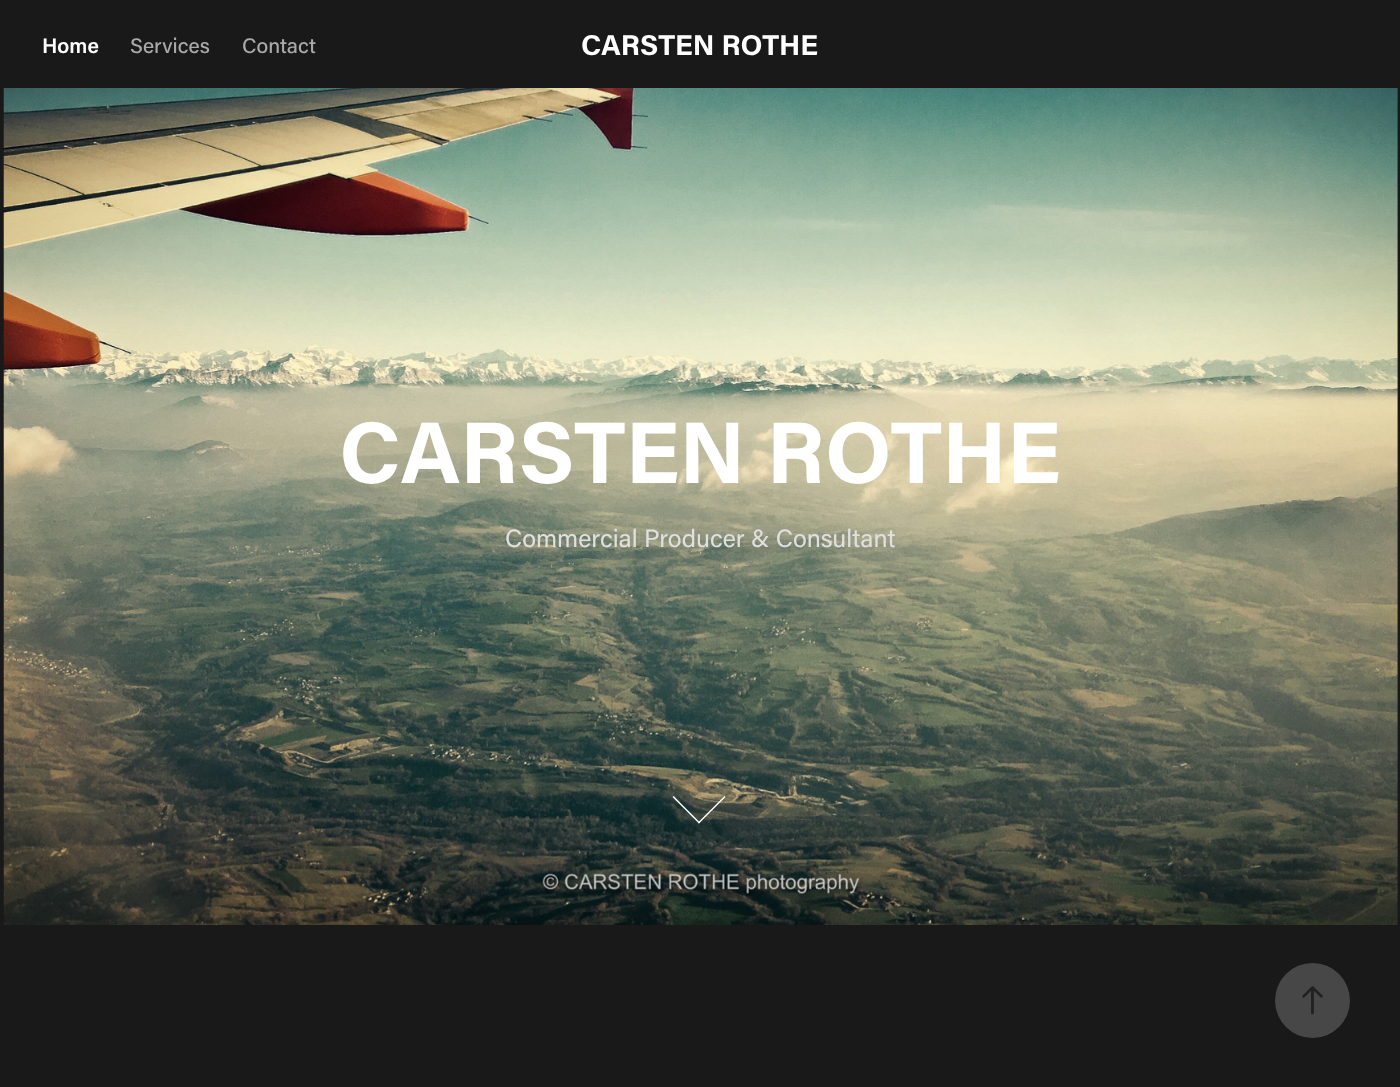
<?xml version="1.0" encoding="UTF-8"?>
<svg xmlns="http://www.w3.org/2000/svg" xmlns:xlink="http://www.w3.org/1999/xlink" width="1400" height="1087">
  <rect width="100%" height="100%" fill="#191919" />
  <image x="3" y="88" width="1395" height="837" xlink:href="image1.png" />
  <path d="M 724.5 796 l 1 1 l -26.5 26.5 l -1 -1 z" fill="#ffffff" />
  <path d="M 673.5 796 l 26.5 26.5 l -1 1 l -26.5 -26.5 z" fill="#ffffff" />
  <circle cx="1312.5" cy="1000.5" r="37.5" fill="#474747" />
  <image x="1302" y="986" width="21" height="29" xlink:href="image2.png" />
  <text x="42" y="53" style="font-family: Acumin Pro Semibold; font-size: 21px; font-weight: 600; fill: #ffffff">Home</text>
  <text x="130" y="53" style="font-family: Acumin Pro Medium; font-size: 21px; font-weight: 500; fill: #a9a9a9">Services</text>
  <text x="242" y="53" style="font-family: Acumin Pro Medium; font-size: 21px; font-weight: 500; fill: #a9a9a9">Contact</text>
  <text x="581" y="55" style="font-family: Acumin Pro; font-size: 28.75px; font-weight: bold; fill: #ffffff">CARSTEN ROTHE</text>
  <text x="339" y="483" style="font-family: Acumin Pro; font-size: 87.5px; font-weight: bold; fill: #ffffff">CARSTEN ROTHE</text>
  <text x="505" y="547" style="font-family: Acumin Pro; font-size: 25px; fill: #e0e0e0">Commercial Producer &amp; Consultant</text>
</svg>
